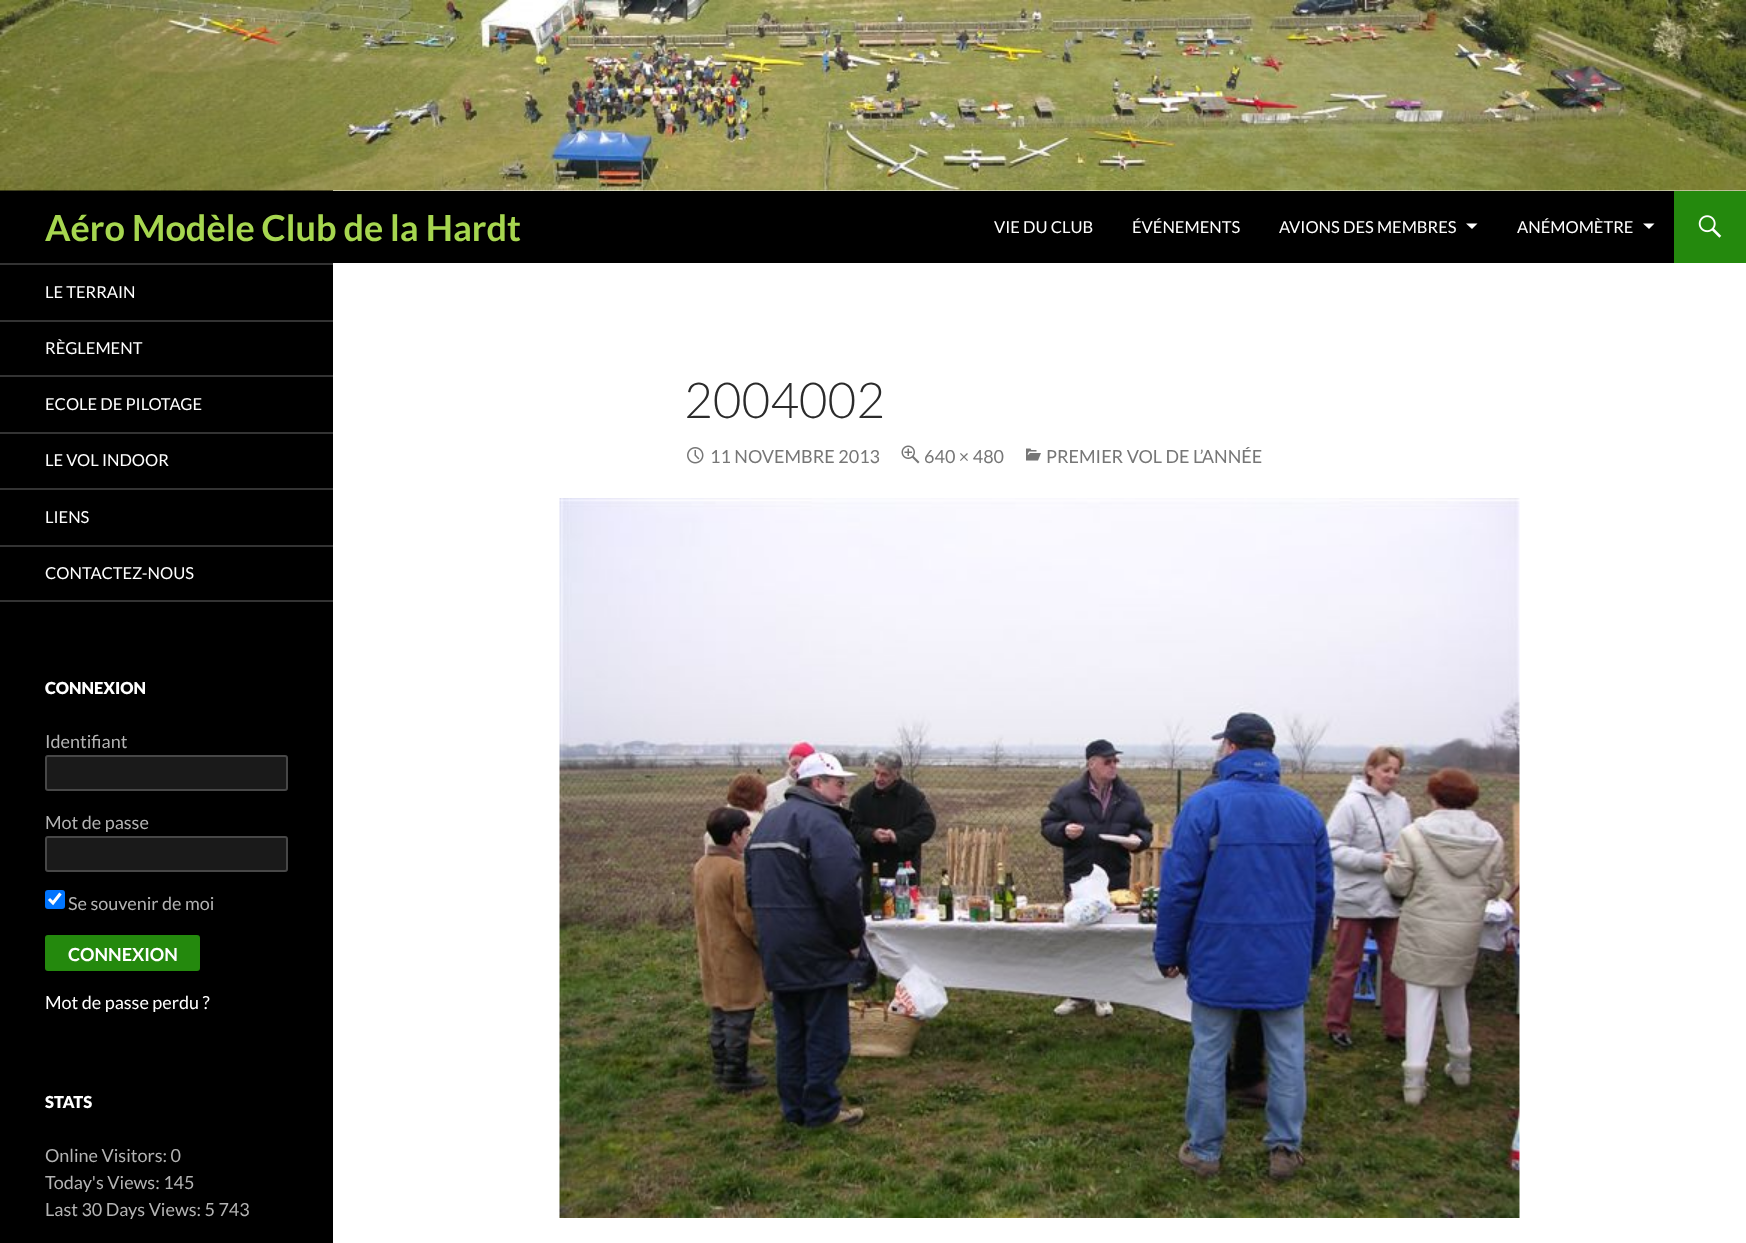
<?xml version="1.0" encoding="UTF-8"?>
<svg xmlns="http://www.w3.org/2000/svg" xmlns:xlink="http://www.w3.org/1999/xlink" width="1746" height="1243">
  <rect width="100%" height="100%" fill="#ffffff" />
  <rect y="190" width="333" height="1053" fill="#000000" />
  <image x="0" y="0" width="1746" height="191" xlink:href="image1.png" />
  <rect x="333" y="191" width="1341" height="72" fill="#000000" />
  <path d="M 1466 223.5 l 6 5.5 l 5.5 -5.5 z" fill="#ffffff" />
  <path d="M 1643 223.5 l 6 5.5 l 5.5 -5.5 z" fill="#ffffff" />
  <rect x="1674" y="191" width="72" height="72" fill="#24890d" />
  <image x="1698" y="215" width="24" height="23" xlink:href="image2.png" />
  <rect y="600" width="333" height="2" fill="#333333" />
  <rect y="263" width="333" height="2" fill="#333333" />
  <rect y="320" width="333" height="2" fill="#333333" />
  <rect y="375" width="333" height="2" fill="#333333" />
  <rect y="432" width="333" height="2" fill="#333333" />
  <rect y="488" width="333" height="2" fill="#333333" />
  <rect y="545" width="333" height="2" fill="#333333" />
  <rect x="45" y="755" width="243" height="36" rx="3" fill="#1a1a1a" />
  <rect x="46" y="756" width="241" height="34" rx="2" fill="none" stroke="#ffffff" stroke-opacity="0.2" stroke-width="2" />
  <rect x="45" y="836" width="243" height="36" rx="3" fill="#1a1a1a" />
  <rect x="46" y="837" width="241" height="34" rx="2" fill="none" stroke="#ffffff" stroke-opacity="0.2" stroke-width="2" />
  <rect x="45" y="890" width="20" height="19" rx="3" fill="#0075ff" />
  <path d="M 49 899 l 4 4 l 7.5 -9.5" fill="none" stroke="#ffffff" stroke-width="3.1" />
  <rect x="45" y="935" width="155" height="36" rx="3" fill="#24890d" />
  <image x="687" y="447" width="17" height="17" xlink:href="image3.png" />
  <image x="901" y="445" width="19" height="19" xlink:href="image4.png" />
  <image x="1026" y="448" width="15" height="13" xlink:href="image5.png" />
  <image x="559" y="498" width="961" height="720" xlink:href="image6.png" />
  <text x="45" y="241" style="font-family: Lato; font-size: 36px; font-weight: bold; fill: #a6d64f">Aéro Modèle Club de la Hardt</text>
  <text x="994" y="233" style="font-family: Lato; font-size: 16.5px; fill: #ffffff">VIE DU CLUB</text>
  <text x="1132" y="233" style="font-family: Lato; font-size: 16.5px; fill: #ffffff">ÉVÉNEMENTS</text>
  <text x="1279" y="233" style="font-family: Lato; font-size: 16.5px; fill: #ffffff">AVIONS DES MEMBRES</text>
  <text x="1517" y="233" style="font-family: Lato; font-size: 16.5px; fill: #ffffff">ANÉMOMÈTRE</text>
  <text x="45" y="298" style="font-family: Lato; font-size: 16.5px; fill: #ffffff">LE TERRAIN</text>
  <text x="45" y="354" style="font-family: Lato; font-size: 16.5px; fill: #ffffff">RÈGLEMENT</text>
  <text x="45" y="410" style="font-family: Lato; font-size: 16.5px; fill: #ffffff">ECOLE DE PILOTAGE</text>
  <text x="45" y="466" style="font-family: Lato; font-size: 16.5px; fill: #ffffff">LE VOL INDOOR</text>
  <text x="45" y="523" style="font-family: Lato; font-size: 16.5px; fill: #ffffff">LIENS</text>
  <text x="45" y="579" style="font-family: Lato; font-size: 16.5px; fill: #ffffff">CONTACTEZ-NOUS</text>
  <text x="45" y="694" style="font-family: Lato; font-size: 16.5px; font-weight: 900; fill: #ffffff">CONNEXION</text>
  <text x="45" y="748" style="font-family: Lato; font-size: 18px; fill: #b3b3b3">Identifiant</text>
  <text x="45" y="829" style="font-family: Lato; font-size: 18px; fill: #b3b3b3">Mot de passe</text>
  <text x="68" y="910" style="font-family: Lato; font-size: 18px; fill: #b3b3b3">Se souvenir de moi</text>
  <text x="68" y="961" style="font-family: Lato; font-size: 18px; font-weight: bold; fill: #ffffff">CONNEXION</text>
  <text x="45" y="1009" style="font-family: Lato; font-size: 18px; fill: #ffffff">Mot de passe perdu ?</text>
  <text x="45" y="1108" style="font-family: Lato; font-size: 16.5px; font-weight: 900; fill: #ffffff">STATS</text>
  <text x="45" y="1162" style="font-family: Lato; font-size: 18px; fill: #b3b3b3">Online Visitors: 0</text>
  <text x="45" y="1189" style="font-family: Lato; font-size: 18px; fill: #b3b3b3">Today's Views: 145</text>
  <text x="45" y="1216" style="font-family: Lato; font-size: 18px; fill: #b3b3b3">Last 30 Days Views: 5 743</text>
  <text x="684" y="418" style="font-family: Lato; font-size: 49.5px; font-weight: 300; fill: #2b2b2b">2004002</text>
  <text x="710" y="463" style="font-family: Lato; font-size: 18px; fill: #767676">11 NOVEMBRE 2013</text>
  <text x="924" y="463" style="font-family: Lato; font-size: 18px; fill: #767676">640 × 480</text>
  <text x="1046" y="463" style="font-family: Lato; font-size: 18px; fill: #767676">PREMIER VOL DE L’ANNÉE</text>
</svg>
